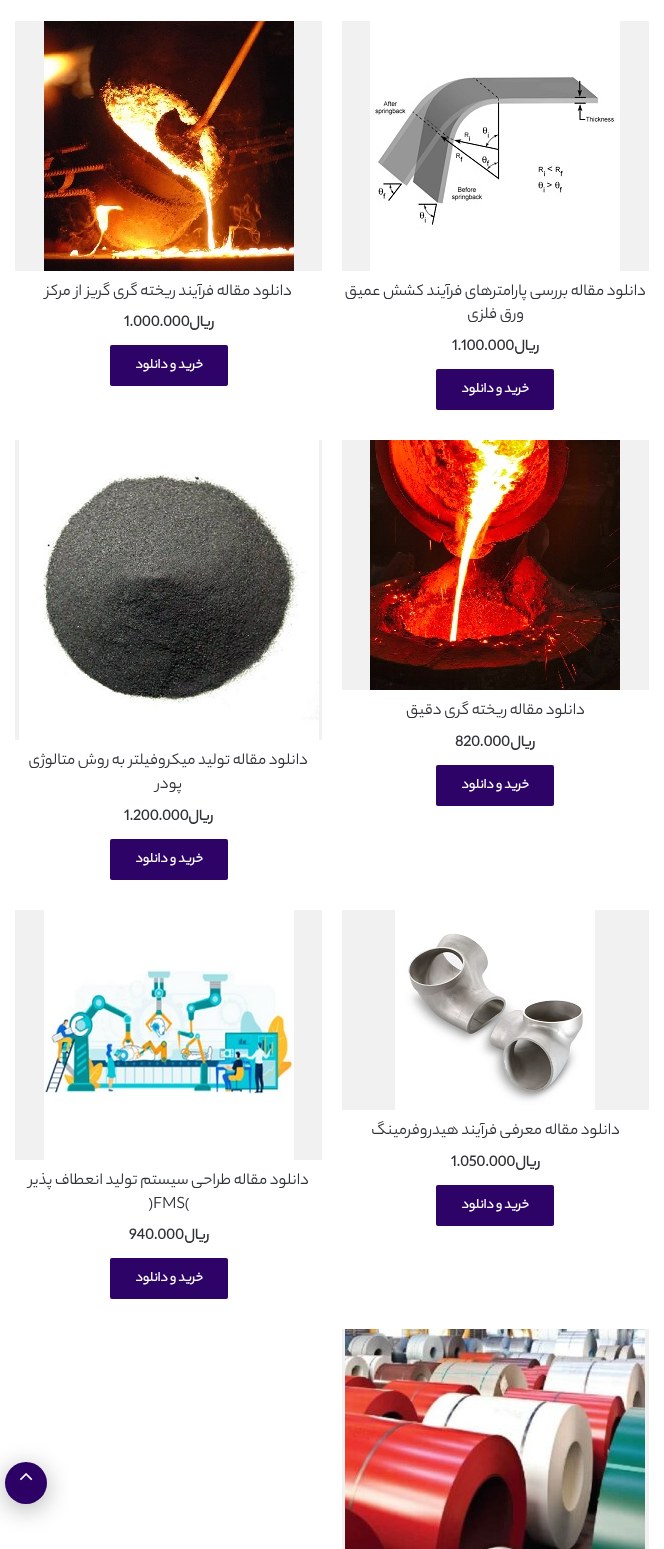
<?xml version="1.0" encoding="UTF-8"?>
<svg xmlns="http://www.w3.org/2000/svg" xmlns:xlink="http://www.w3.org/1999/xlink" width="664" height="1549">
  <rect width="100%" height="100%" fill="#ffffff" />
  <rect x="342" y="21" width="307" height="250" fill="#f1f1f1" />
  <image x="370" y="21" width="250" height="250" xlink:href="image1.png" />
  <rect x="436" y="369" width="118" height="41" rx="2" fill="#2e0367" />
  <rect x="15" y="21" width="307" height="250" fill="#f1f1f1" />
  <image x="44" y="21" width="250" height="250" xlink:href="image2.png" />
  <rect x="110" y="345" width="118" height="41" rx="2" fill="#2e0367" />
  <rect x="342" y="440" width="307" height="250" fill="#f1f1f1" />
  <image x="370" y="440" width="250" height="250" xlink:href="image3.png" />
  <rect x="436" y="765" width="118" height="41" rx="2" fill="#2e0367" />
  <rect x="15" y="440" width="307" height="300" fill="#f1f1f1" />
  <image x="19" y="440" width="300" height="300" xlink:href="image4.png" />
  <rect x="110" y="839" width="118" height="41" rx="2" fill="#2e0367" />
  <rect x="342" y="910" width="307" height="200" fill="#f1f1f1" />
  <image x="395" y="910" width="200" height="200" xlink:href="image5.png" />
  <rect x="436" y="1185" width="118" height="41" rx="2" fill="#2e0367" />
  <rect x="15" y="910" width="307" height="250" fill="#f1f1f1" />
  <image x="44" y="910" width="250" height="250" xlink:href="image6.png" />
  <rect x="110" y="1258" width="118" height="41" rx="2" fill="#2e0367" />
  <rect x="342" y="1329" width="307" height="220" fill="#f1f1f1" />
  <image x="345" y="1329" width="300" height="220" xlink:href="image7.png" />
  <rect x="5" y="1467" width="42" height="42" rx="21" fill="#000000" fill-opacity="0.3" filter="blur(12.5px)" />
  <circle cx="26" cy="1483" r="21" fill="#2c0065" />
  <image x="20" y="1473" width="13" height="8" xlink:href="image8.png" />
  <text x="646" y="295" style="font-family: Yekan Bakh; font-size: 17px; direction: rtl; fill: #2e3136">دانلود مقاله بررسی پارامترهای فرآیند کشش عمیق</text>
  <text x="524" y="318" style="font-family: Yekan Bakh; font-size: 17px; direction: rtl; fill: #2e3136">ورق فلزی</text>
  <text x="539" y="350" style="font-family: Yekan Bakh; font-size: 16px; font-weight: bold; direction: rtl; fill: #2e3136">ریال</text>
  <text x="452" y="350" style="font-family: Yekan Bakh; font-size: 16px; font-weight: bold; fill: #2e3136">1.100.000</text>
  <text x="529" y="392" style="font-family: Yekan Bakh; font-size: 14px; font-weight: bold; direction: rtl; fill: #ffffff">خرید و دانلود</text>
  <text x="292" y="295" style="font-family: Yekan Bakh; font-size: 17px; direction: rtl; fill: #2e3136">دانلود مقاله فرآیند ریخته گری گریز از مرکز</text>
  <text x="214" y="326" style="font-family: Yekan Bakh; font-size: 16px; font-weight: bold; direction: rtl; fill: #2e3136">ریال</text>
  <text x="124" y="326" style="font-family: Yekan Bakh; font-size: 16px; font-weight: bold; fill: #2e3136">1.000.000</text>
  <text x="203" y="368" style="font-family: Yekan Bakh; font-size: 14px; font-weight: bold; direction: rtl; fill: #ffffff">خرید و دانلود</text>
  <text x="585" y="714" style="font-family: Yekan Bakh; font-size: 17px; direction: rtl; fill: #2e3136">دانلود مقاله ریخته گری دقیق</text>
  <text x="535" y="746" style="font-family: Yekan Bakh; font-size: 16px; font-weight: bold; direction: rtl; fill: #2e3136">ریال</text>
  <text x="455" y="746" style="font-family: Yekan Bakh; font-size: 16px; font-weight: bold; fill: #2e3136">820.000</text>
  <text x="529" y="788" style="font-family: Yekan Bakh; font-size: 14px; font-weight: bold; direction: rtl; fill: #ffffff">خرید و دانلود</text>
  <text x="308" y="764" style="font-family: Yekan Bakh; font-size: 17px; direction: rtl; fill: #2e3136">دانلود مقاله تولید میکروفیلتر به روش متالوژی</text>
  <text x="182" y="788" style="font-family: Yekan Bakh; font-size: 17px; direction: rtl; fill: #2e3136">پودر</text>
  <text x="213" y="820" style="font-family: Yekan Bakh; font-size: 16px; font-weight: bold; direction: rtl; fill: #2e3136">ریال</text>
  <text x="124" y="820" style="font-family: Yekan Bakh; font-size: 16px; font-weight: bold; fill: #2e3136">1.200.000</text>
  <text x="203" y="862" style="font-family: Yekan Bakh; font-size: 14px; font-weight: bold; direction: rtl; fill: #ffffff">خرید و دانلود</text>
  <text x="620" y="1134" style="font-family: Yekan Bakh; font-size: 17px; direction: rtl; fill: #2e3136">دانلود مقاله معرفی فرآیند هیدروفرمینگ</text>
  <text x="540" y="1166" style="font-family: Yekan Bakh; font-size: 16px; font-weight: bold; direction: rtl; fill: #2e3136">ریال</text>
  <text x="451" y="1166" style="font-family: Yekan Bakh; font-size: 16px; font-weight: bold; fill: #2e3136">1.050.000</text>
  <text x="529" y="1208" style="font-family: Yekan Bakh; font-size: 14px; font-weight: bold; direction: rtl; fill: #ffffff">خرید و دانلود</text>
  <text x="309" y="1184" style="font-family: Yekan Bakh; font-size: 17px; direction: rtl; fill: #2e3136">دانلود مقاله طراحی سیستم تولید انعطاف پذیر</text>
  <text x="148" y="1208" style="font-family: Yekan Bakh; font-size: 17px; fill: #2e3136">)FMS(</text>
  <text x="209" y="1239" style="font-family: Yekan Bakh; font-size: 16px; font-weight: bold; direction: rtl; fill: #2e3136">ریال</text>
  <text x="129" y="1239" style="font-family: Yekan Bakh; font-size: 16px; font-weight: bold; fill: #2e3136">940.000</text>
  <text x="203" y="1281" style="font-family: Yekan Bakh; font-size: 14px; font-weight: bold; direction: rtl; fill: #ffffff">خرید و دانلود</text>
</svg>
